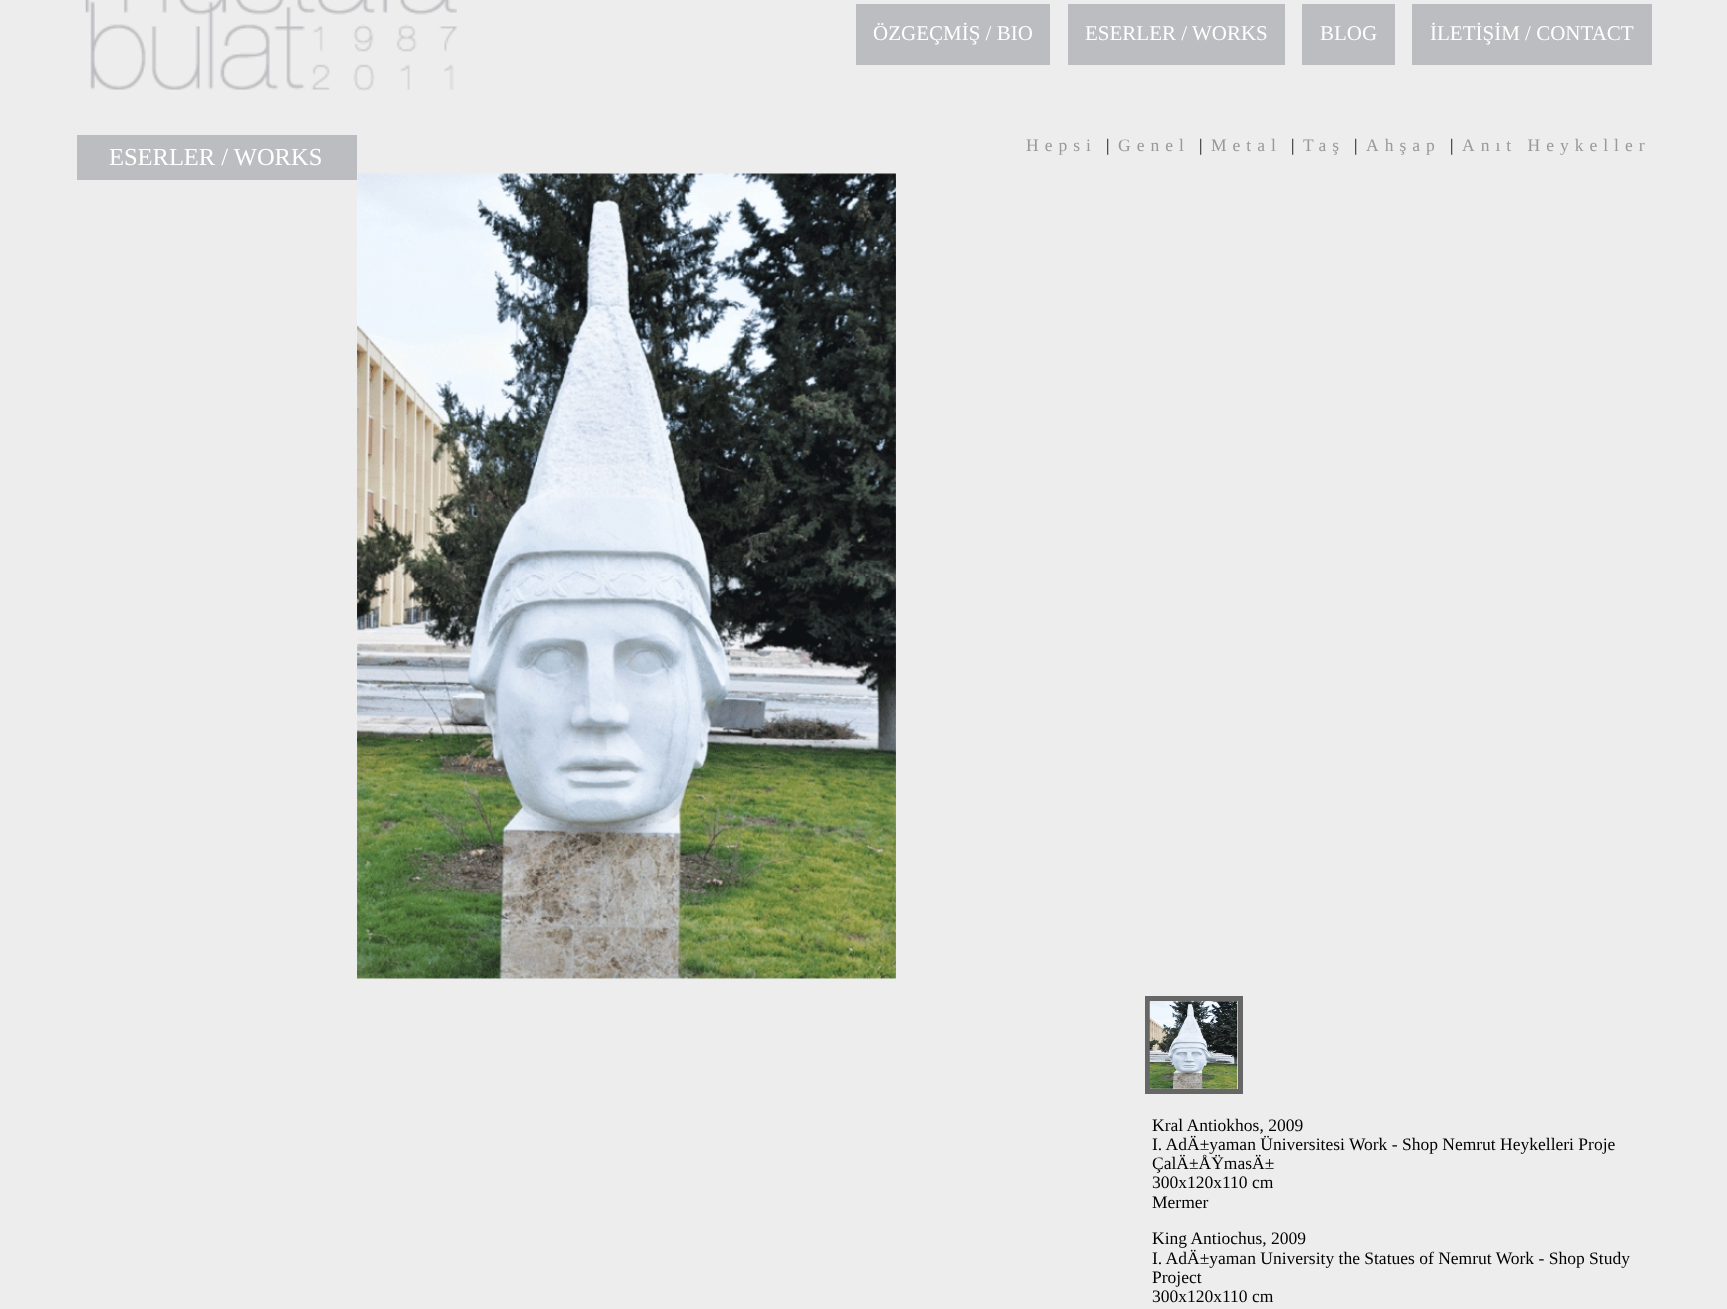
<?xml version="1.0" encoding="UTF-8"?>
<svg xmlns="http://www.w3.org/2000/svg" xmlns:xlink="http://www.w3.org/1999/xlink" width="1727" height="1309">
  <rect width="100%" height="100%" fill="#ededed" />
  <image x="85" y="0" width="372" height="91" xlink:href="image1.png" />
  <rect x="856" y="4" width="194" height="61" fill="#bcbdc0" />
  <rect x="1068" y="4" width="217" height="61" fill="#bcbdc0" />
  <rect x="1302" y="4" width="93" height="61" fill="#bcbdc0" />
  <rect x="1412" y="4" width="240" height="61" fill="#bcbdc0" />
  <rect x="77" y="135" width="280" height="45" fill="#bcbdc0" />
  <image x="357" y="173" width="539" height="806" xlink:href="image2.png" />
  <rect x="1147.5" y="998.5" width="93" height="93" fill="none" stroke="#666666" stroke-width="5" />
  <image x="1149" y="1001" width="89" height="88" xlink:href="image3.png" />
  <text x="873" y="40" style="font-family: Liberation Serif; font-size: 21px; fill: #ffffff">ÖZGEÇMİŞ / BIO</text>
  <text x="1085" y="40" style="font-family: Liberation Serif; font-size: 21px; fill: #ffffff">ESERLER / WORKS</text>
  <text x="1320" y="40" style="font-family: Liberation Serif; font-size: 21px; fill: #ffffff">BLOG</text>
  <text x="1430" y="40" style="font-family: Liberation Serif; font-size: 21px; fill: #ffffff">İLETİŞİM / CONTACT</text>
  <text x="109" y="165" style="font-family: Liberation Serif; font-size: 24.5px; fill: #ffffff">ESERLER / WORKS</text>
  <text x="1026" y="151" style="font-family: Liberation Serif; font-size: 17.5px; letter-spacing: 6px; fill: #999999">Hepsi</text>
  <text x="1106" y="151" style="font-family: Liberation Serif; font-size: 17.5px; fill: #000000">|</text>
  <text x="1118" y="151" style="font-family: Liberation Serif; font-size: 17.5px; letter-spacing: 6px; fill: #999999">Genel</text>
  <text x="1199" y="151" style="font-family: Liberation Serif; font-size: 17.5px; fill: #000000">|</text>
  <text x="1211" y="151" style="font-family: Liberation Serif; font-size: 17.5px; letter-spacing: 6px; fill: #999999">Metal</text>
  <text x="1291" y="151" style="font-family: Liberation Serif; font-size: 17.5px; fill: #000000">|</text>
  <text x="1303" y="151" style="font-family: Liberation Serif; font-size: 17.5px; letter-spacing: 6px; fill: #999999">Taş</text>
  <text x="1354" y="151" style="font-family: Liberation Serif; font-size: 17.5px; fill: #000000">|</text>
  <text x="1366" y="151" style="font-family: Liberation Serif; font-size: 17.5px; letter-spacing: 6px; fill: #999999">Ahşap</text>
  <text x="1450" y="151" style="font-family: Liberation Serif; font-size: 17.5px; fill: #000000">|</text>
  <text x="1462" y="151" style="font-family: Liberation Serif; font-size: 17.5px; letter-spacing: 6px; fill: #999999">Anıt Heykeller</text>
  <text x="1152" y="1131" style="font-family: Liberation Serif; font-size: 17.5px; fill: #000000">Kral Antiokhos, 2009</text>
  <text x="1152" y="1150" style="font-family: Liberation Serif; font-size: 17.5px; fill: #000000">I. AdÄ±yaman Üniversitesi Work - Shop Nemrut Heykelleri Proje</text>
  <text x="1152" y="1169" style="font-family: Liberation Serif; font-size: 17.5px; fill: #000000">ÇalÄ±ÅŸmasÄ±</text>
  <text x="1152" y="1188" style="font-family: Liberation Serif; font-size: 17.5px; fill: #000000">300x120x110 cm</text>
  <text x="1152" y="1208" style="font-family: Liberation Serif; font-size: 17.5px; fill: #000000">Mermer</text>
  <text x="1152" y="1244" style="font-family: Liberation Serif; font-size: 17.5px; fill: #000000">King Antiochus, 2009</text>
  <text x="1152" y="1264" style="font-family: Liberation Serif; font-size: 17.5px; fill: #000000">I. AdÄ±yaman University the Statues of Nemrut Work - Shop Study</text>
  <text x="1152" y="1283" style="font-family: Liberation Serif; font-size: 17.5px; fill: #000000">Project</text>
  <text x="1152" y="1302" style="font-family: Liberation Serif; font-size: 17.5px; fill: #000000">300x120x110 cm</text>
</svg>
